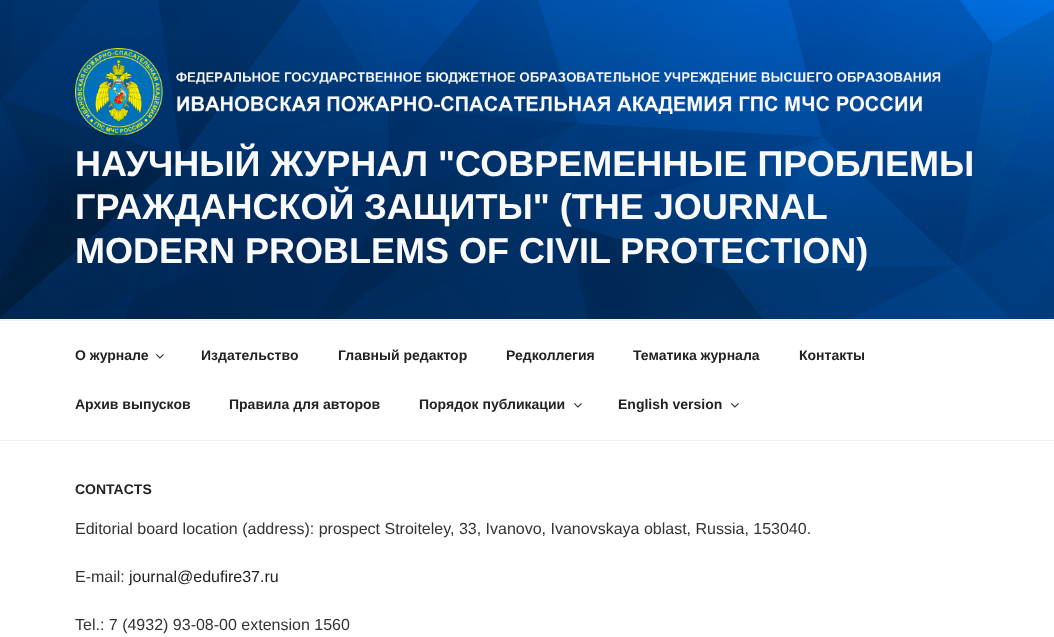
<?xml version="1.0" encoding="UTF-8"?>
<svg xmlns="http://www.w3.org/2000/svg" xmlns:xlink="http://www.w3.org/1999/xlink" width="1054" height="637">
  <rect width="100%" height="100%" fill="#ffffff" />
  <rect y="319" width="1054" height="1" fill="#fafafa" />
  <image x="0" y="0" width="1054" height="319" xlink:href="image1.png" />
  <image x="75" y="48" width="866" height="87" xlink:href="image2.png" />
  <rect y="320" width="1054" height="1" fill="#eeeeee" />
  <rect y="440" width="1054" height="1" fill="#eeeeee" />
  <image x="156" y="354" width="8" height="5" xlink:href="image3.png" />
  <image x="574" y="403" width="8" height="5" xlink:href="image3.png" />
  <image x="731" y="403" width="8" height="5" xlink:href="image3.png" />
  <text x="75" y="176" style="font-family: Liberation Sans; font-size: 36px; font-weight: bold; fill: #f9f9f9">НАУЧНЫЙ ЖУРНАЛ "СОВРЕМЕННЫЕ ПРОБЛЕМЫ</text>
  <text x="75" y="219" style="font-family: Liberation Sans; font-size: 36px; font-weight: bold; fill: #f9f9f9">ГРАЖДАНСКОЙ ЗАЩИТЫ" (THE JOURNAL</text>
  <text x="75" y="263" style="font-family: Liberation Sans; font-size: 36px; font-weight: bold; fill: #f9f9f9">MODERN PROBLEMS OF CIVIL PROTECTION)</text>
  <text x="75" y="360" style="font-family: Liberation Sans; font-size: 14px; font-weight: bold; fill: #222222">О журнале</text>
  <text x="201" y="360" style="font-family: Liberation Sans; font-size: 14px; font-weight: bold; fill: #222222">Издательство</text>
  <text x="338" y="360" style="font-family: Liberation Sans; font-size: 14px; font-weight: bold; fill: #222222">Главный редактор</text>
  <text x="506" y="360" style="font-family: Liberation Sans; font-size: 14px; font-weight: bold; fill: #222222">Редколлегия</text>
  <text x="633" y="360" style="font-family: Liberation Sans; font-size: 14px; font-weight: bold; fill: #222222">Тематика журнала</text>
  <text x="799" y="360" style="font-family: Liberation Sans; font-size: 14px; font-weight: bold; fill: #222222">Контакты</text>
  <text x="75" y="409" style="font-family: Liberation Sans; font-size: 14px; font-weight: bold; fill: #222222">Архив выпусков</text>
  <text x="229" y="409" style="font-family: Liberation Sans; font-size: 14px; font-weight: bold; fill: #222222">Правила для авторов</text>
  <text x="419" y="409" style="font-family: Liberation Sans; font-size: 14px; font-weight: bold; fill: #222222">Порядок публикации</text>
  <text x="618" y="409" style="font-family: Liberation Sans; font-size: 14px; font-weight: bold; fill: #222222">English version</text>
  <text x="75" y="494" style="font-family: Liberation Sans; font-size: 14px; font-weight: bold; fill: #222222">CONTACTS</text>
  <text x="75" y="534" style="font-family: Liberation Sans; font-size: 16px; fill: #333333">Editorial board location (address): prospect Stroiteley, 33, Ivanovo, Ivanovskaya oblast, Russia, 153040.</text>
  <text x="75" y="582" style="font-family: Liberation Sans; font-size: 16px; fill: #333333">Е-mail:</text>
  <text x="129" y="582" style="font-family: Liberation Sans; font-size: 16px; fill: #222222">journal@edufire37.ru</text>
  <text x="75" y="630" style="font-family: Liberation Sans; font-size: 16px; fill: #333333">Tel.: 7 (4932) 93-08-00 extension 1560</text>
</svg>
